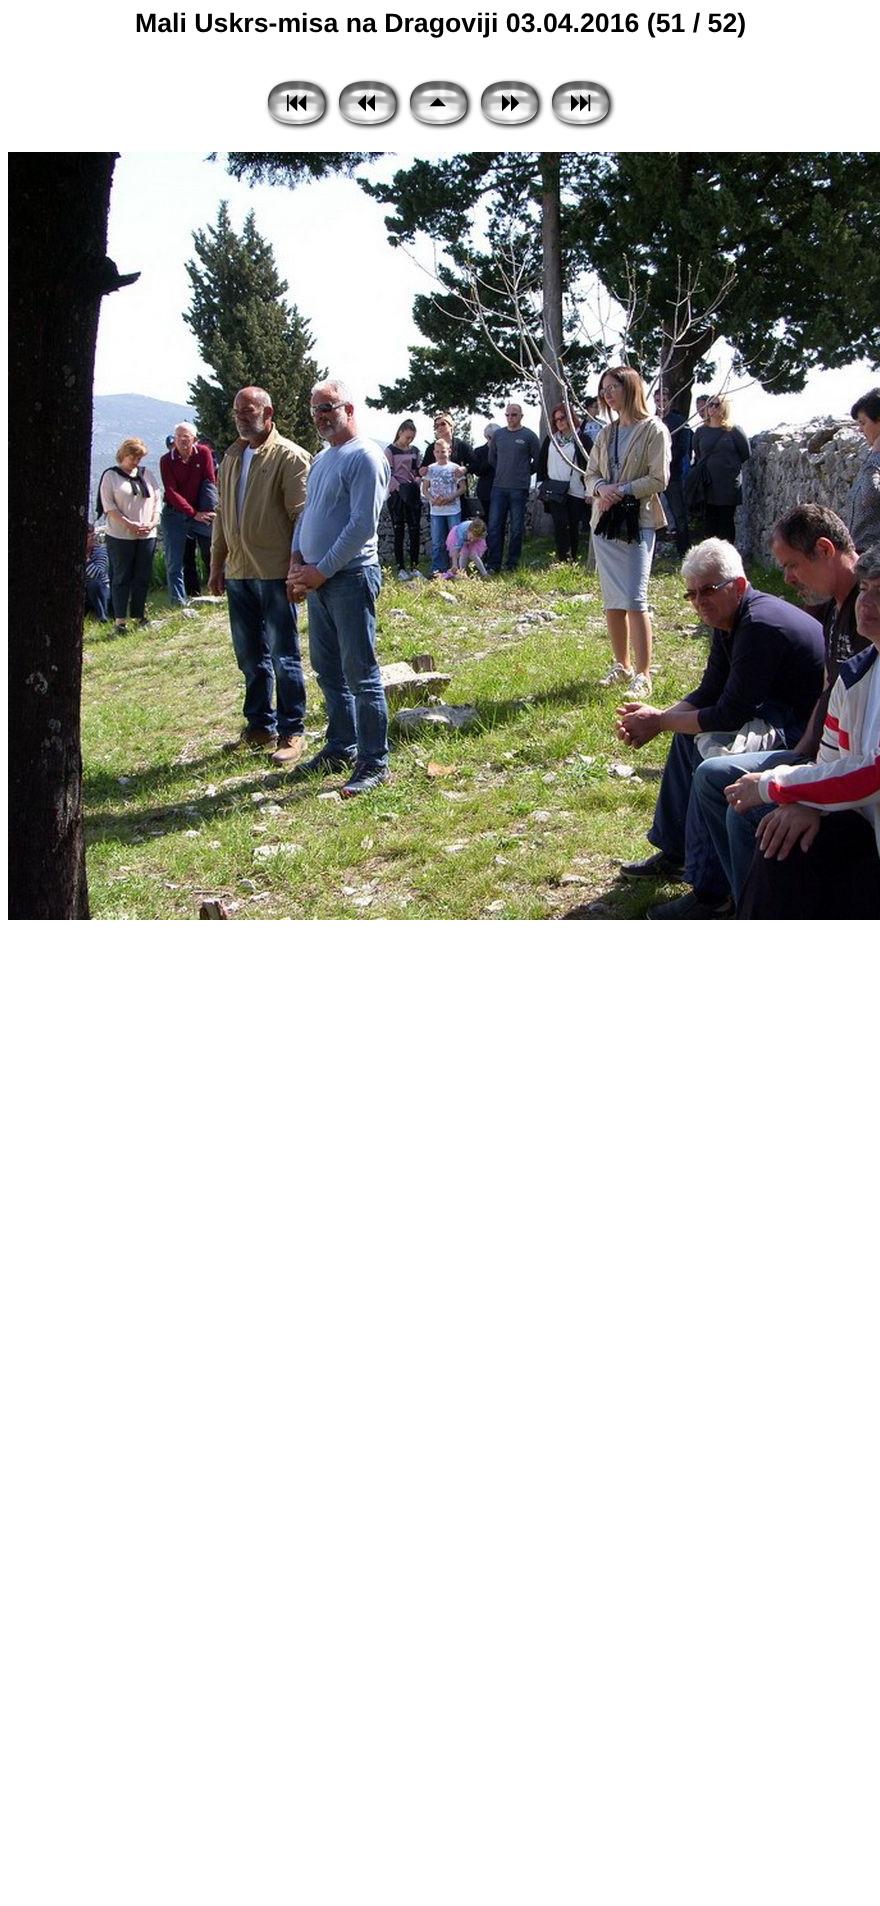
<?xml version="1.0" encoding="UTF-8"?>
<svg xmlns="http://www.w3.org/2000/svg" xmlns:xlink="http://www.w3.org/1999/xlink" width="880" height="1906">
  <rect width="100%" height="100%" fill="#ffffff" />
  <image x="265" y="78" width="67" height="53" xlink:href="image1.png" />
  <image x="336" y="78" width="67" height="53" xlink:href="image2.png" />
  <image x="407" y="78" width="67" height="53" xlink:href="image3.png" />
  <image x="478" y="78" width="67" height="53" xlink:href="image4.png" />
  <image x="549" y="78" width="67" height="53" xlink:href="image5.png" />
  <image x="8" y="152" width="872" height="768" xlink:href="image6.png" />
  <text x="135" y="32" style="font-family: Liberation Sans; font-size: 26.7px; font-weight: bold; fill: #000000">Mali Uskrs-misa na Dragoviji 03.04.2016 (51 / 52)</text>
</svg>
